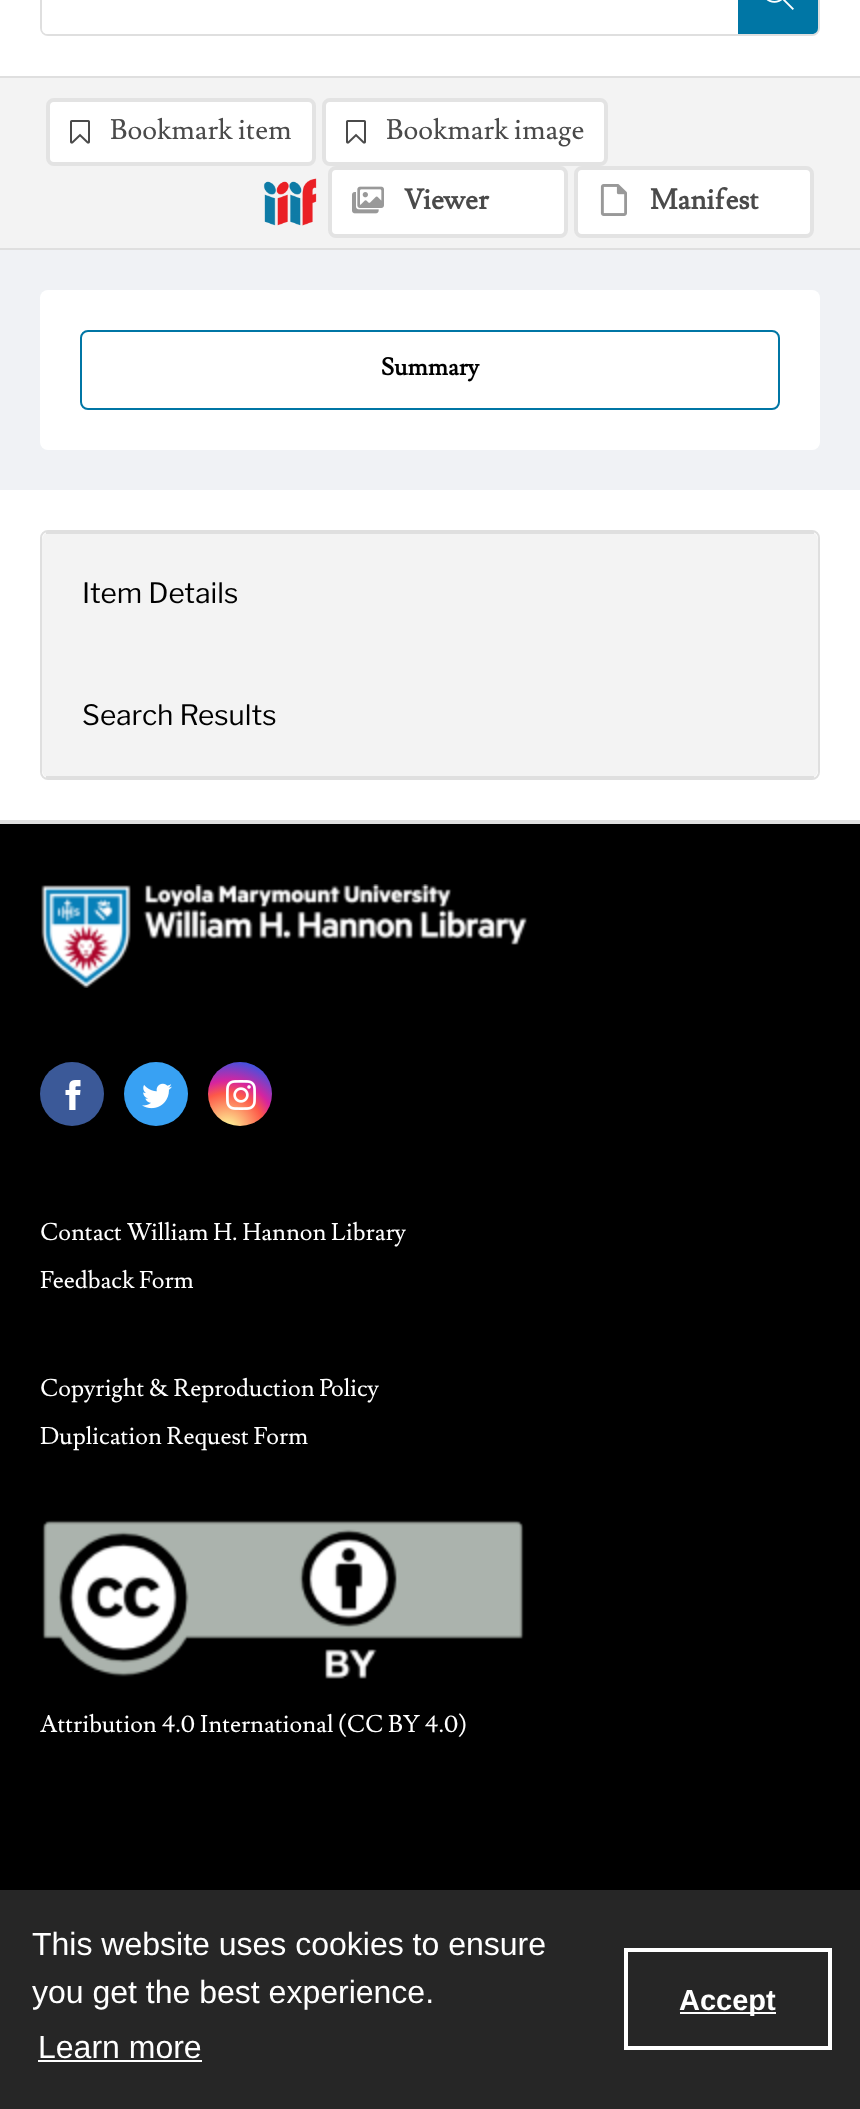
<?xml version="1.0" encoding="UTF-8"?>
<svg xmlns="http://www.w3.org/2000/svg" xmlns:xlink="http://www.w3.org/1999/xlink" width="860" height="2109">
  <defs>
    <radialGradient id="g1" gradientUnits="userSpaceOnUse" cx="227" cy="1130" r="82"><stop offset="0" stop-color="#fdf497" /><stop offset="0.05" stop-color="#fdf497" /><stop offset="0.45" stop-color="#fd5949" /><stop offset="0.6" stop-color="#d6249f" /><stop offset="0.9" stop-color="#285aeb" /></radialGradient>
  </defs>
  <rect width="100%" height="100%" fill="#ffffff" />
  <rect y="250" width="860" height="240" fill="#f0f2f5" />
  <rect x="41" y="-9" width="778" height="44" rx="7" fill="none" stroke="#dfdfdf" stroke-width="2" />
  <path d="M 48 -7 h 689 v 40 h -689 c -3 0 -5 -2 -5 -5 v -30 c 0 -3 2 -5 5 -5 z" fill="#ffffff" stroke="#ffffff" stroke-width="2" />
  <path d="M 738 -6 h 74 c 3.5 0 6 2.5 6 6 v 28 c 0 3.5 -2.5 6 -6 6 h -74 z" fill="#0076a5" />
  <image x="766" y="0" width="28" height="10" xlink:href="image1.png" />
  <rect y="78" width="860" height="170" fill="#f3f3f3" />
  <rect y="76" width="860" height="2" fill="#dfdfdf" />
  <rect y="248" width="860" height="2" fill="#dfdfdf" />
  <rect x="48" y="100" width="266" height="64" rx="6" fill="#ffffff" stroke="#e3e3e3" stroke-width="4" />
  <image x="70" y="120" width="20" height="24" xlink:href="image2.png" />
  <rect x="324" y="100" width="282" height="64" rx="6" fill="#ffffff" stroke="#e3e3e3" stroke-width="4" />
  <image x="346" y="120" width="20" height="24" xlink:href="image2.png" />
  <image x="263" y="178" width="54" height="48" xlink:href="image3.png" />
  <rect x="330" y="168" width="236" height="68" rx="6" fill="#ffffff" stroke="#e3e3e3" stroke-width="4" />
  <image x="352" y="186" width="32" height="28" xlink:href="image4.png" />
  <rect x="576" y="168" width="236" height="68" rx="6" fill="#ffffff" stroke="#e3e3e3" stroke-width="4" />
  <image x="600" y="184" width="27" height="32" xlink:href="image5.png" />
  <rect x="40" y="290" width="780" height="160" rx="8" fill="#ffffff" />
  <rect x="81" y="331" width="698" height="78" rx="7" fill="none" stroke="#0076a5" stroke-width="2" />
  <rect x="41" y="531" width="778" height="248" rx="7" fill="none" stroke="#dfdfdf" stroke-width="2" />
  <rect x="42" y="532" width="776" height="246" rx="8" fill="#f3f3f3" />
  <rect x="46" y="532" width="768" height="2" fill="#dfdfdf" />
  <rect x="46" y="776" width="768" height="2" fill="#dfdfdf" />
  <rect y="820" width="860" height="4" fill="#dfdfdf" />
  <rect y="824" width="860" height="1066" fill="#000000" />
  <image x="41" y="884" width="487" height="104" xlink:href="image6.png" />
  <circle cx="72" cy="1094" r="32" fill="#3b5998" />
  <image x="65" y="1080" width="16" height="30" xlink:href="image7.png" />
  <circle cx="156" cy="1094" r="32" fill="#38a1f3" />
  <image x="142" y="1083" width="30" height="26" xlink:href="image8.png" />
  <circle cx="240" cy="1094" r="32" fill="url(#g1)" />
  <image x="226" y="1080" width="30" height="30" xlink:href="image9.png" />
  <image x="42" y="1520" width="482" height="159" xlink:href="image10.png" />
  <rect y="1890" width="860" height="219" fill="#262626" />
  <rect x="38" y="2060" width="164" height="2" fill="#ffffff" />
  <rect x="626" y="1950" width="204" height="98" fill="none" stroke="#ffffff" stroke-width="4" />
  <rect x="680" y="2012" width="96" height="2" fill="#ffffff" />
  <text x="110" y="139" style="font-family: Lusitana; font-size: 28px; fill: #4a4a4a">Bookmark item</text>
  <text x="386" y="139" style="font-family: Lusitana; font-size: 28px; fill: #4a4a4a">Bookmark image</text>
  <text x="404" y="209" style="font-family: Lusitana; font-size: 28px; font-weight: bold; fill: #4a4a4a">Viewer</text>
  <text x="650" y="209" style="font-family: Lusitana; font-size: 28px; font-weight: bold; fill: #4a4a4a">Manifest</text>
  <text x="381" y="375" style="font-family: Lusitana; font-size: 24px; font-weight: bold; fill: #000000">Summary</text>
  <text x="82" y="603" style="font-family: Libre Franklin; font-size: 28px; fill: #000000">Item Details</text>
  <text x="82" y="725" style="font-family: Libre Franklin; font-size: 28px; fill: #000000">Search Results</text>
  <text x="40" y="1240" style="font-family: Lusitana; font-size: 24px; fill: #ffffff">Contact William H. Hannon Library</text>
  <text x="40" y="1288" style="font-family: Lusitana; font-size: 24px; fill: #ffffff">Feedback Form</text>
  <text x="40" y="1396" style="font-family: Lusitana; font-size: 24px; fill: #ffffff">Copyright &amp; Reproduction Policy</text>
  <text x="40" y="1444" style="font-family: Lusitana; font-size: 24px; fill: #ffffff">Duplication Request Form</text>
  <text x="40" y="1732" style="font-family: Lusitana; font-size: 24px; fill: #ffffff">Attribution 4.0 International (CC BY 4.0)</text>
  <text x="32" y="1955" style="font-family: Liberation Sans; font-size: 32px; fill: #ffffff">This website uses cookies to ensure</text>
  <text x="32" y="2003" style="font-family: Liberation Sans; font-size: 32px; fill: #ffffff">you get the best experience.</text>
  <text x="38" y="2058" style="font-family: Liberation Sans; font-size: 32px; fill: #ffffff">Learn more</text>
  <text x="679" y="2010" style="font-family: Liberation Sans; font-size: 29px; font-weight: bold; fill: #ffffff">Accept</text>
</svg>
